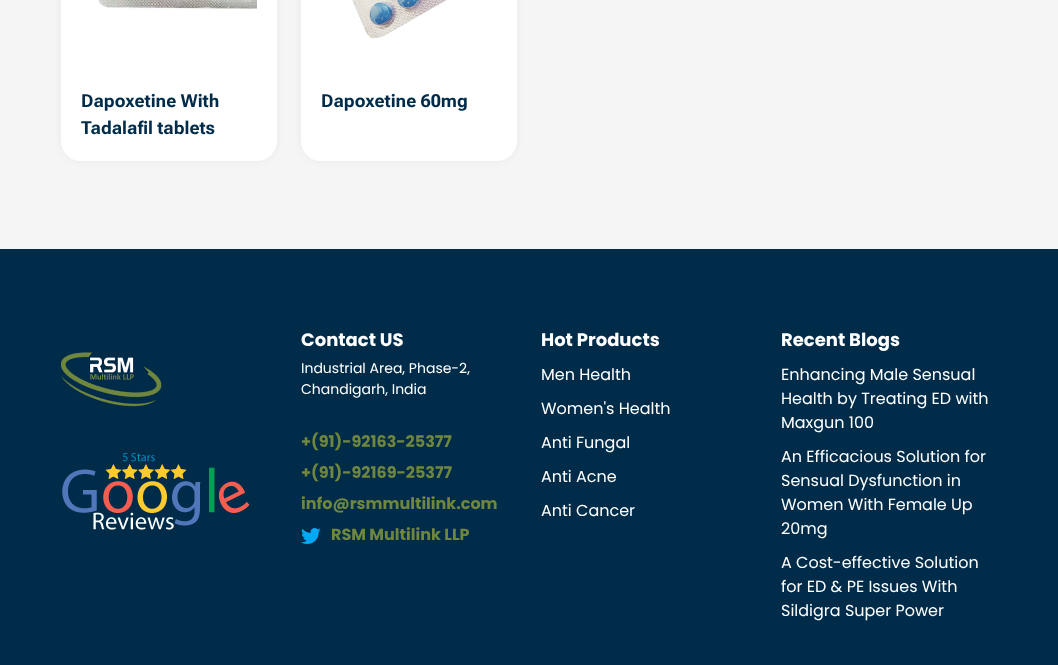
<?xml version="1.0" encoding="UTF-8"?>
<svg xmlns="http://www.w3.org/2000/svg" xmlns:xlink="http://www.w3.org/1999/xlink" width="1058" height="665">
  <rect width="100%" height="100%" fill="#f5f5f5" />
  <rect x="64" y="-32" width="210" height="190" rx="17" fill="#000000" fill-opacity="0.11" filter="blur(5px)" />
  <rect x="61" y="-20" width="216" height="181" rx="20" fill="#ffffff" />
  <image x="98" y="0" width="159" height="10" xlink:href="image1.png" />
  <rect x="304" y="-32" width="210" height="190" rx="17" fill="#000000" fill-opacity="0.11" filter="blur(5px)" />
  <rect x="301" y="-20" width="216" height="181" rx="20" fill="#ffffff" />
  <image x="352" y="0" width="95" height="39" xlink:href="image2.png" />
  <rect y="249" width="1058" height="416" fill="#002c49" />
  <image x="61" y="352" width="101" height="55" xlink:href="image3.png" />
  <image x="62" y="453" width="188" height="77" xlink:href="image4.png" />
  <image x="301" y="528" width="20" height="16" xlink:href="image5.png" />
  <text x="81" y="107" style="font-family: Roboto Flex; font-size: 18px; font-weight: bold; fill: #002c49">Dapoxetine With</text>
  <text x="81" y="134" style="font-family: Roboto Flex; font-size: 18px; font-weight: bold; fill: #002c49">Tadalafil tablets</text>
  <text x="321" y="107" style="font-family: Roboto Flex; font-size: 18px; font-weight: bold; fill: #002c49">Dapoxetine 60mg</text>
  <text x="301" y="346" style="font-family: Poppins; font-size: 18px; font-weight: bold; fill: #ffffff">Contact US</text>
  <text x="301" y="373" style="font-family: Poppins; font-size: 14px; fill: #ffffff">Industrial Area, Phase-2,</text>
  <text x="301" y="394" style="font-family: Poppins; font-size: 14px; fill: #ffffff">Chandigarh, India</text>
  <text x="301" y="447" style="font-family: Poppins; font-size: 16px; font-weight: bold; fill: #6f863e">+(91)-92163-25377</text>
  <text x="301" y="478" style="font-family: Poppins; font-size: 16px; font-weight: bold; fill: #6f863e">+(91)-92169-25377</text>
  <text x="301" y="509" style="font-family: Poppins; font-size: 16px; font-weight: bold; fill: #6f863e">info@rsmmultilink.com</text>
  <text x="331" y="540" style="font-family: Poppins; font-size: 16px; font-weight: bold; fill: #6f863e">RSM Multilink LLP</text>
  <text x="541" y="346" style="font-family: Poppins; font-size: 18px; font-weight: bold; fill: #ffffff">Hot Products</text>
  <text x="541" y="380" style="font-family: Poppins; font-size: 16px; fill: #ffffff">Men Health</text>
  <text x="541" y="414" style="font-family: Poppins; font-size: 16px; fill: #ffffff">Women's Health</text>
  <text x="541" y="448" style="font-family: Poppins; font-size: 16px; fill: #ffffff">Anti Fungal</text>
  <text x="541" y="482" style="font-family: Poppins; font-size: 16px; fill: #ffffff">Anti Acne</text>
  <text x="541" y="516" style="font-family: Poppins; font-size: 16px; fill: #ffffff">Anti Cancer</text>
  <text x="781" y="346" style="font-family: Poppins; font-size: 18px; font-weight: bold; fill: #ffffff">Recent Blogs</text>
  <text x="781" y="380" style="font-family: Poppins; font-size: 16px; fill: #ffffff">Enhancing Male Sensual</text>
  <text x="781" y="404" style="font-family: Poppins; font-size: 16px; fill: #ffffff">Health by Treating ED with</text>
  <text x="781" y="428" style="font-family: Poppins; font-size: 16px; fill: #ffffff">Maxgun 100</text>
  <text x="781" y="462" style="font-family: Poppins; font-size: 16px; fill: #ffffff">An Efficacious Solution for</text>
  <text x="781" y="486" style="font-family: Poppins; font-size: 16px; fill: #ffffff">Sensual Dysfunction in</text>
  <text x="781" y="510" style="font-family: Poppins; font-size: 16px; fill: #ffffff">Women With Female Up</text>
  <text x="781" y="534" style="font-family: Poppins; font-size: 16px; fill: #ffffff">20mg</text>
  <text x="781" y="568" style="font-family: Poppins; font-size: 16px; fill: #ffffff">A Cost-effective Solution</text>
  <text x="781" y="592" style="font-family: Poppins; font-size: 16px; fill: #ffffff">for ED &amp; PE Issues With</text>
  <text x="781" y="616" style="font-family: Poppins; font-size: 16px; fill: #ffffff">Sildigra Super Power</text>
</svg>
